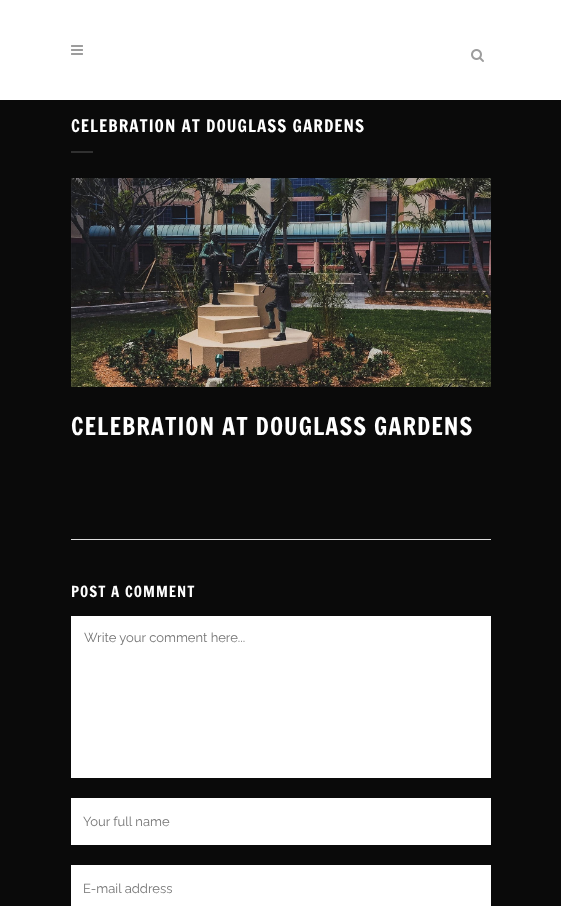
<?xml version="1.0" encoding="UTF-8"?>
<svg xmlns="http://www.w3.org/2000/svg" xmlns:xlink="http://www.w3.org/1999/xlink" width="561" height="906">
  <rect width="100%" height="100%" fill="#0a0a0a" />
  <rect width="561" height="100" fill="#ffffff" />
  <image x="71" y="45" width="12" height="10" xlink:href="image1.png" />
  <image x="471" y="49" width="13" height="13" xlink:href="image2.png" />
  <rect x="71" y="151" width="22" height="2" fill="#303030" />
  <image x="71" y="178" width="420" height="209" xlink:href="image3.png" />
  <rect x="71" y="539" width="420" height="1" fill="#dddddd" />
  <rect x="71" y="616" width="420" height="162" fill="#ffffff" />
  <rect x="71" y="798" width="420" height="47" fill="#ffffff" />
  <rect x="71" y="865" width="420" height="41" fill="#ffffff" />
  <text x="71" y="132" style="font-family: Francois One; font-size: 17px; letter-spacing: 1px; fill: #ffffff">CELEBRATION AT DOUGLASS GARDENS</text>
  <text x="71" y="435" style="font-family: Francois One; font-size: 24px; letter-spacing: 1px; fill: #ffffff">CELEBRATION AT DOUGLASS GARDENS</text>
  <text x="71" y="597" style="font-family: Francois One; font-size: 15px; letter-spacing: 1px; fill: #ffffff">POST A COMMENT</text>
  <text x="84" y="642" style="font-family: Raleway; font-size: 13px; fill: #757575">Write your comment here...</text>
  <text x="83" y="826" style="font-family: Raleway; font-size: 13px; fill: #757575">Your full name</text>
  <text x="83" y="893" style="font-family: Raleway; font-size: 13px; fill: #757575">E-mail address</text>
</svg>
